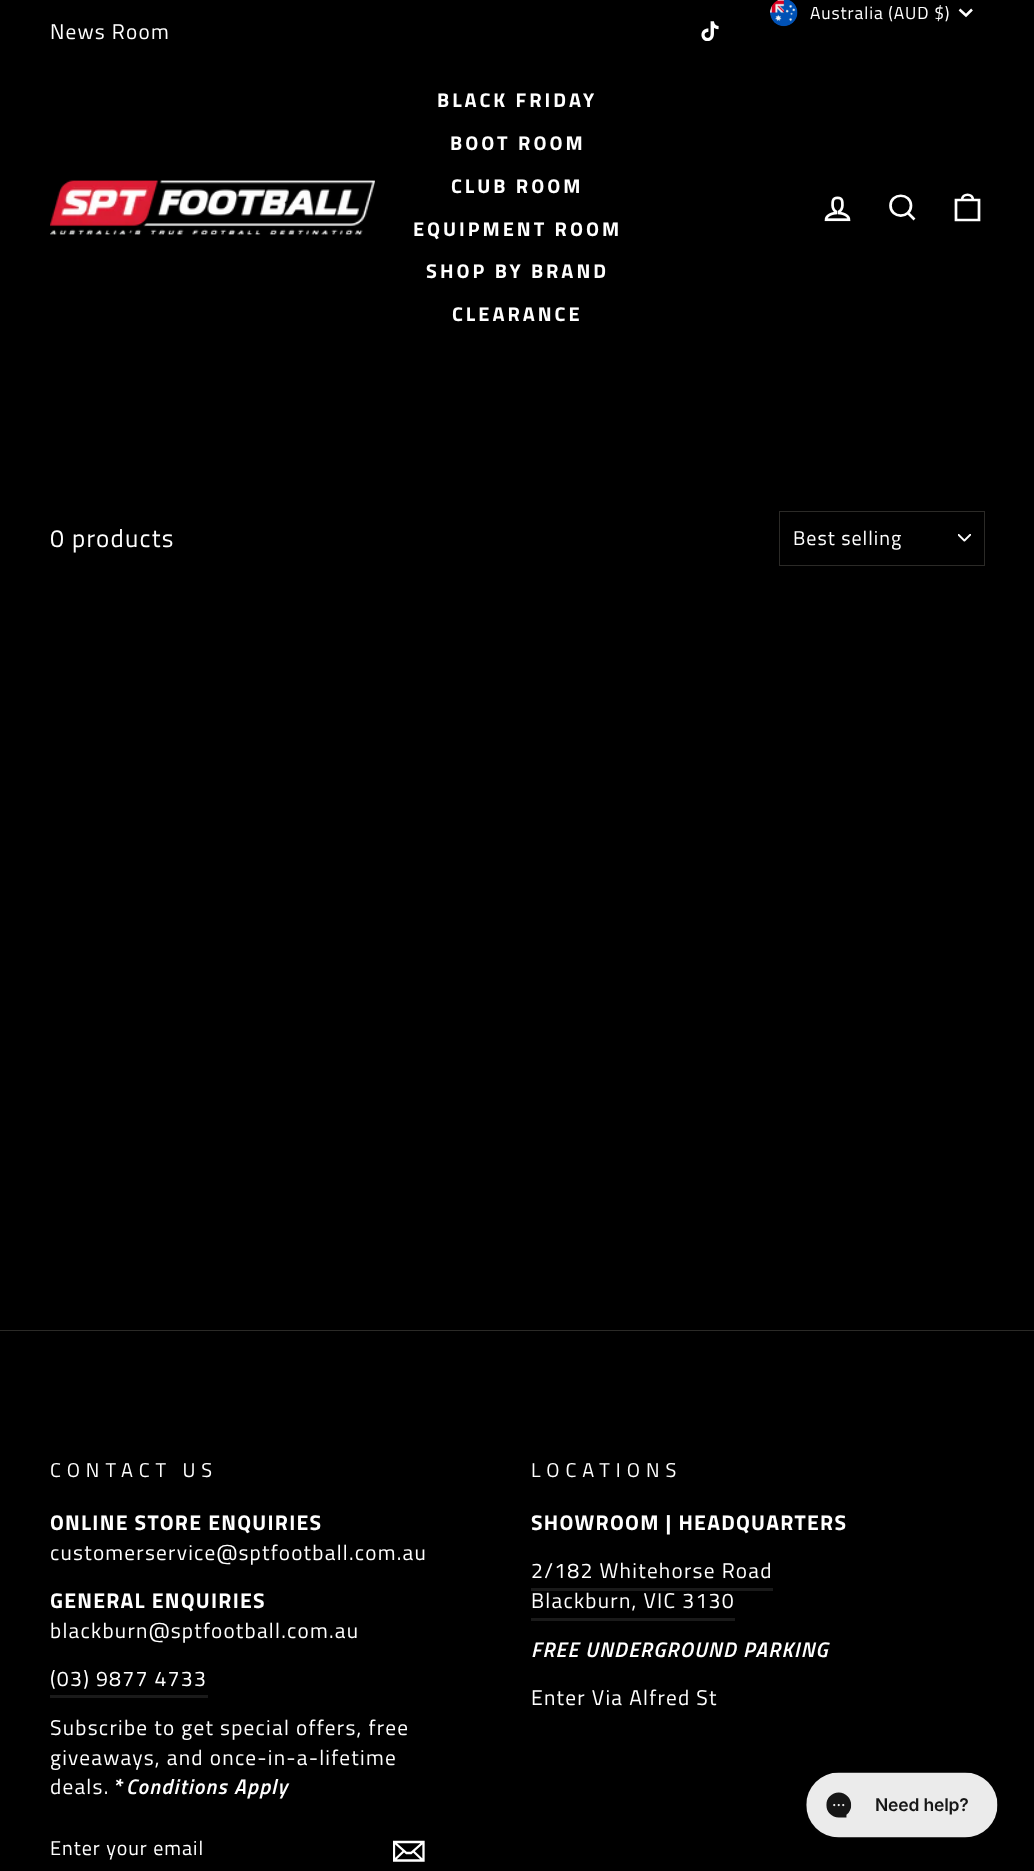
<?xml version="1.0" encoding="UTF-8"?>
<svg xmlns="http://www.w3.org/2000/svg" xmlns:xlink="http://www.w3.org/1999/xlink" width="1034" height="1871">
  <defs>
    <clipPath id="clip1"><rect x="393" y="1836" width="32" height="30" /></clipPath>
  </defs>
  <rect width="100%" height="100%" fill="#000000" />
  <image x="770" y="0" width="28" height="27" xlink:href="image1.png" />
  <path d="M 959.5 9.5 l 6.5 6 l 6 -6" fill="none" stroke="#ffffff" stroke-width="2.5" />
  <image x="701" y="21" width="18" height="20" xlink:href="image2.png" />
  <image x="50" y="180" width="325" height="55" xlink:href="image3.png" />
  <image x="824" y="196" width="27" height="26" xlink:href="image4.png" />
  <path d="M 911 205.5 c 0 13.5 -20.5 13.5 -20.5 0 c 0 -13 20.5 -13 20.5 0 z m 3.5 14 l -6.5 -6.5" fill="none" stroke="#ffffff" stroke-width="2.7" />
  <path d="M 956 200 h 23 v 20 h -23 z m 6 0 c 0 -7 11 -7 11 0" fill="none" stroke="#ffffff" stroke-width="2.7" />
  <image x="958" y="534" width="13" height="8" xlink:href="image5.png" />
  <rect x="779.5" y="511.5" width="205" height="54" fill="none" stroke="#2b2a27" />
  <rect y="1330" width="1034" height="1" fill="#2b2a27" />
  <rect x="50" y="1695" width="158" height="3" fill="#1a1a1a" />
  <g clip-path="url(#clip1)">
    <path d="M 423.5 1860.5 h -29.5 v -18.5 h 29.5 z m -29.5 -18.5 l 12.5 11 h 4.5 l 12.5 -11 m -19.5 9 l -9.5 9 m 28.5 0.5 l -10 -9.5" fill="none" stroke="#ffffff" stroke-width="2.3" />
  </g>
  <rect x="531" y="1588" width="242" height="3" fill="#1a1a1a" />
  <rect x="531" y="1618" width="204" height="3" fill="#1a1a1a" />
  <image x="806" y="1772" width="192" height="66" xlink:href="image6.png" />
  <text x="810" y="19" style="font-family: Titillium Web; font-size: 17.5px; letter-spacing: 0.9px; fill: #ffffff">Australia (AUD $)</text>
  <text x="50" y="39" style="font-family: Titillium Web; font-size: 21.25px; letter-spacing: 1.25px; fill: #ffffff">News Room</text>
  <text x="437" y="107" style="font-family: Titillium Web; font-size: 20px; font-weight: bold; letter-spacing: 3px; fill: #ffffff">BLACK FRIDAY</text>
  <text x="450" y="150" style="font-family: Titillium Web; font-size: 20px; font-weight: bold; letter-spacing: 3px; fill: #ffffff">BOOT ROOM</text>
  <text x="451" y="193" style="font-family: Titillium Web; font-size: 20px; font-weight: bold; letter-spacing: 3px; fill: #ffffff">CLUB ROOM</text>
  <text x="413" y="236" style="font-family: Titillium Web; font-size: 20px; font-weight: bold; letter-spacing: 3px; fill: #ffffff">EQUIPMENT ROOM</text>
  <text x="426" y="278" style="font-family: Titillium Web; font-size: 20px; font-weight: bold; letter-spacing: 3px; fill: #ffffff">SHOP BY BRAND</text>
  <text x="452" y="321" style="font-family: Titillium Web; font-size: 20px; font-weight: bold; letter-spacing: 3px; fill: #ffffff">CLEARANCE</text>
  <text x="50" y="547" style="font-family: Titillium Web; font-size: 25px; letter-spacing: 1.25px; fill: #ffffff">0 products</text>
  <text x="793" y="545" style="font-family: Titillium Web; font-size: 20px; letter-spacing: 1px; fill: #ffffff">Best selling</text>
  <text x="50" y="1477" style="font-family: Titillium Web; font-size: 20px; letter-spacing: 6px; fill: #ffffff">CONTACT US</text>
  <text x="50" y="1530" style="font-family: Titillium Web; font-size: 21.25px; font-weight: bold; letter-spacing: 1.25px; fill: #ffffff">ONLINE STORE ENQUIRIES</text>
  <text x="50" y="1560" style="font-family: Titillium Web; font-size: 21.25px; letter-spacing: 1.25px; fill: #ffffff">customerservice@sptfootball.com.au</text>
  <text x="50" y="1608" style="font-family: Titillium Web; font-size: 21.25px; font-weight: bold; letter-spacing: 1.25px; fill: #ffffff">GENERAL ENQUIRIES</text>
  <text x="50" y="1638" style="font-family: Titillium Web; font-size: 21.25px; letter-spacing: 1.25px; fill: #ffffff">blackburn@sptfootball.com.au</text>
  <text x="50" y="1686" style="font-family: Titillium Web; font-size: 21.25px; letter-spacing: 1.25px; fill: #ffffff">(03) 9877 4733</text>
  <text x="50" y="1735" style="font-family: Titillium Web; font-size: 21.25px; letter-spacing: 1.25px; fill: #ffffff">Subscribe to get special offers, free</text>
  <text x="50" y="1765" style="font-family: Titillium Web; font-size: 21.25px; letter-spacing: 1.25px; fill: #ffffff">giveaways, and once-in-a-lifetime</text>
  <text x="50" y="1794" style="font-family: Titillium Web; font-size: 21.25px; letter-spacing: 1.25px; fill: #ffffff">deals.</text>
  <text x="115" y="1794" style="font-family: Titillium Web; font-size: 21.25px; font-weight: bold; letter-spacing: 1.25px; fill: #ffffff">*</text>
  <text x="126" y="1794" style="font-family: Titillium Web; font-size: 21.25px; font-weight: 600; font-style: italic; letter-spacing: 1.25px; fill: #ffffff">Conditions Apply</text>
  <text x="50" y="1855" style="font-family: Titillium Web; font-size: 20px; letter-spacing: 1px; fill: #ffffff">Enter your email</text>
  <text x="531" y="1477" style="font-family: Titillium Web; font-size: 20px; letter-spacing: 6px; fill: #ffffff">LOCATIONS</text>
  <text x="531" y="1530" style="font-family: Titillium Web; font-size: 21.25px; font-weight: bold; letter-spacing: 1.25px; fill: #ffffff">SHOWROOM | HEADQUARTERS</text>
  <text x="531" y="1578" style="font-family: Titillium Web; font-size: 21.25px; letter-spacing: 1.25px; fill: #ffffff">2/182 Whitehorse Road</text>
  <text x="531" y="1608" style="font-family: Titillium Web; font-size: 21.25px; letter-spacing: 1.25px; fill: #ffffff">Blackburn, VIC 3130</text>
  <text x="531" y="1657" style="font-family: Titillium Web; font-size: 21.25px; font-weight: 600; font-style: italic; letter-spacing: 1.25px; fill: #ffffff">FREE UNDERGROUND PARKING</text>
  <text x="531" y="1705" style="font-family: Titillium Web; font-size: 21.25px; letter-spacing: 1.25px; fill: #ffffff">Enter Via Alfred St</text>
</svg>
